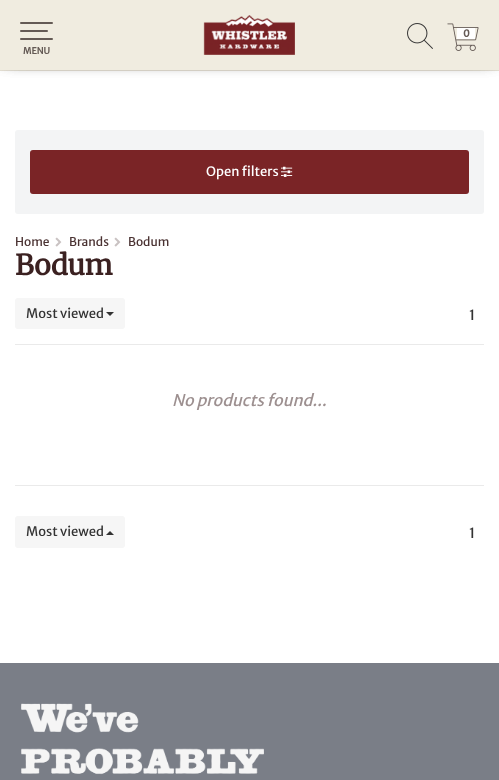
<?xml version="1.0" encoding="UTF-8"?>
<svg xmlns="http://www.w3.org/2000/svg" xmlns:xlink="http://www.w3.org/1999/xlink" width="499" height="780">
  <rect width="100%" height="100%" fill="#ffffff" />
  <rect y="70" width="499" height="1" fill="#e7e2d6" />
  <rect x="6" y="6" width="487" height="48" fill="#000000" filter="blur(10px)" />
  <rect x="6" y="6" width="487" height="48" fill="#000000" filter="blur(10px)" />
  <rect width="499" height="70" fill="#f0ece0" />
  <image x="203" y="15" width="92" height="40" xlink:href="image1.png" />
  <image x="407" y="23" width="26" height="26" xlink:href="image2.png" />
  <image x="447" y="23" width="32" height="28" xlink:href="image3.png" />
  <rect x="457" y="28" width="18" height="11" fill="#ffffff" />
  <rect x="20" y="22" width="33" height="2" rx="1" fill="#645a55" />
  <rect x="20" y="30" width="28" height="2" rx="1" fill="#645a55" />
  <rect x="20" y="38" width="33" height="2" rx="1" fill="#645a55" />
  <rect x="15" y="130" width="469" height="84" rx="3" fill="#f3f4f5" />
  <rect x="30" y="150" width="439" height="44" rx="3" fill="#7a2426" />
  <image x="281" y="166" width="12" height="11" xlink:href="image4.png" />
  <image x="55" y="237" width="7" height="10" xlink:href="image5.png" />
  <image x="114" y="237" width="7" height="10" xlink:href="image5.png" />
  <rect x="15" y="298" width="110" height="31" rx="3" fill="#f6f6f6" />
  <path d="M 106 312 h 8 l -4 4 z" fill="#333333" />
  <rect x="15" y="344" width="469" height="1" fill="#eaeaea" />
  <rect x="15" y="485" width="469" height="1" fill="#eaeaea" />
  <rect x="15" y="516" width="110" height="32" rx="3" fill="#f6f6f6" />
  <path d="M 114 535 h -8 l 4 -4 z" fill="#333333" />
  <rect y="663" width="499" height="117" fill="#7a7e87" />
  <image x="21" y="703" width="243" height="72" xlink:href="image6.png" />
  <text x="463" y="37" style="font-family: Merriweather Sans; font-size: 10px; font-weight: bold; fill: #645a55">0</text>
  <text x="23" y="54" style="font-family: Merriweather Sans; font-size: 9px; font-weight: bold; fill: #645a55">MENU</text>
  <text x="206" y="176" style="font-family: Merriweather Sans; font-size: 13px; fill: #ffffff">Open filters</text>
  <text x="15" y="246" style="font-family: Merriweather Sans; font-size: 12px; fill: #4a3232">Home</text>
  <text x="69" y="246" style="font-family: Merriweather Sans; font-size: 12px; fill: #4a3232">Brands</text>
  <text x="128" y="246" style="font-family: Merriweather Sans; font-size: 12px; fill: #4a3232">Bodum</text>
  <text x="15" y="275" style="font-family: Merriweather; font-size: 28px; font-weight: bold; letter-spacing: -0.25px; fill: #3b2121">Bodum</text>
  <text x="26" y="318" style="font-family: Merriweather Sans; font-size: 13px; fill: #333333">Most viewed</text>
  <text x="469" y="320" style="font-family: Merriweather Sans; font-size: 14px; fill: #333333">1</text>
  <text x="172" y="406" style="font-family: Merriweather Sans; font-size: 16px; font-style: italic; fill: #9d9090">No products found...</text>
  <text x="26" y="536" style="font-family: Merriweather Sans; font-size: 13px; fill: #333333">Most viewed</text>
  <text x="469" y="538" style="font-family: Merriweather Sans; font-size: 14px; fill: #333333">1</text>
</svg>
